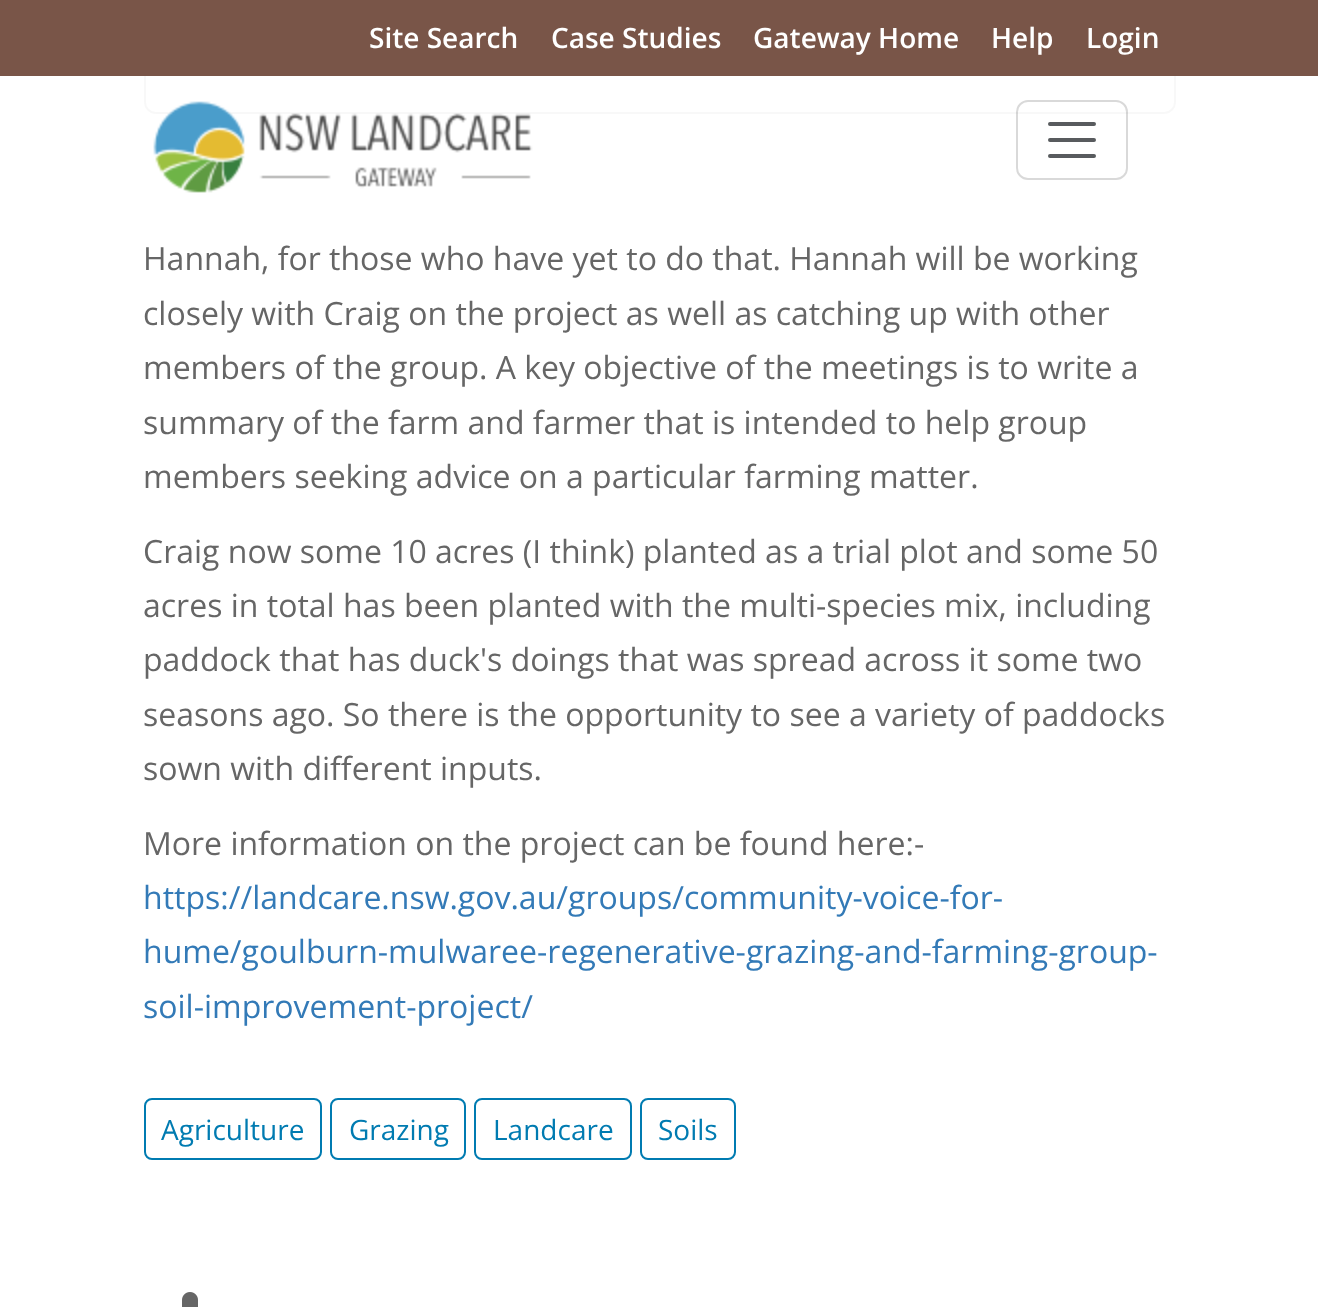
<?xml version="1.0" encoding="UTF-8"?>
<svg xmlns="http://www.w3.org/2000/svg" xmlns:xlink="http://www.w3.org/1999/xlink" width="1318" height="1307">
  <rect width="100%" height="100%" fill="#ffffff" />
  <rect x="145" y="-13" width="1030" height="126" rx="11" fill="none" stroke="#d2d2d2" stroke-width="2" />
  <rect width="1318" height="76" fill="#795548" />
  <rect x="144" y="76" width="1032" height="38" fill="#ffffff" fill-opacity="0.85" />
  <image x="153" y="101" width="380" height="92" xlink:href="image1.png" />
  <rect x="1017" y="101" width="110" height="78" rx="11" fill="none" stroke="#000000" stroke-opacity="0.15" stroke-width="2" />
  <path d="M 1050 124 h 44 m -44 16 h 44 m -44 16 h 44" fill="none" stroke="#585b5e" stroke-width="4" stroke-linecap="round" />
  <rect x="145" y="1099" width="176" height="60" rx="7" fill="none" stroke="#007bb1" stroke-width="2" />
  <rect x="331" y="1099" width="134" height="60" rx="7" fill="none" stroke="#007bb1" stroke-width="2" />
  <rect x="475" y="1099" width="156" height="60" rx="7" fill="none" stroke="#007bb1" stroke-width="2" />
  <rect x="641" y="1099" width="94" height="60" rx="7" fill="none" stroke="#007bb1" stroke-width="2" />
  <image x="182" y="1292" width="16" height="15" xlink:href="image2.png" />
  <text x="369" y="48" style="font-family: Open Sans; font-size: 28px; font-weight: 600; fill: #ffffff">Site Search</text>
  <text x="551" y="48" style="font-family: Open Sans; font-size: 28px; font-weight: 600; fill: #ffffff">Case Studies</text>
  <text x="753" y="48" style="font-family: Open Sans; font-size: 28px; font-weight: 600; fill: #ffffff">Gateway Home</text>
  <text x="991" y="48" style="font-family: Open Sans; font-size: 28px; font-weight: 600; fill: #ffffff">Help</text>
  <text x="1086" y="48" style="font-family: Open Sans; font-size: 28px; font-weight: 600; fill: #ffffff">Login</text>
  <text x="143" y="270" style="font-family: Open Sans; font-size: 32px; fill: #666666">Hannah, for those who have yet to do that. Hannah will be working</text>
  <text x="143" y="325" style="font-family: Open Sans; font-size: 32px; fill: #666666">closely with Craig on the project as well as catching up with other</text>
  <text x="143" y="379" style="font-family: Open Sans; font-size: 32px; fill: #666666">members of the group. A key objective of the meetings is to write a</text>
  <text x="143" y="434" style="font-family: Open Sans; font-size: 32px; fill: #666666">summary of the farm and farmer that is intended to help group</text>
  <text x="143" y="488" style="font-family: Open Sans; font-size: 32px; fill: #666666">members seeking advice on a particular farming matter.</text>
  <text x="143" y="563" style="font-family: Open Sans; font-size: 32px; fill: #666666">Craig now some 10 acres (I think) planted as a trial plot and some 50</text>
  <text x="143" y="617" style="font-family: Open Sans; font-size: 32px; fill: #666666">acres in total has been planted with the multi-species mix, including</text>
  <text x="143" y="671" style="font-family: Open Sans; font-size: 32px; fill: #666666">paddock that has duck's doings that was spread across it some two</text>
  <text x="143" y="726" style="font-family: Open Sans; font-size: 32px; fill: #666666">seasons ago. So there is the opportunity to see a variety of paddocks</text>
  <text x="143" y="780" style="font-family: Open Sans; font-size: 32px; fill: #666666">sown with different inputs.</text>
  <text x="143" y="855" style="font-family: Open Sans; font-size: 32px; fill: #666666">More information on the project can be found here:-</text>
  <text x="143" y="909" style="font-family: Open Sans; font-size: 32px; fill: #337ab7">https://landcare.nsw.gov.au/groups/community-voice-for-</text>
  <text x="143" y="963" style="font-family: Open Sans; font-size: 32px; fill: #337ab7">hume/goulburn-mulwaree-regenerative-grazing-and-farming-group-</text>
  <text x="143" y="1018" style="font-family: Open Sans; font-size: 32px; fill: #337ab7">soil-improvement-project/</text>
  <text x="161" y="1140" style="font-family: Open Sans; font-size: 28px; fill: #007bb1">Agriculture</text>
  <text x="349" y="1140" style="font-family: Open Sans; font-size: 28px; fill: #007bb1">Grazing</text>
  <text x="493" y="1140" style="font-family: Open Sans; font-size: 28px; fill: #007bb1">Landcare</text>
  <text x="658" y="1140" style="font-family: Open Sans; font-size: 28px; fill: #007bb1">Soils</text>
</svg>
